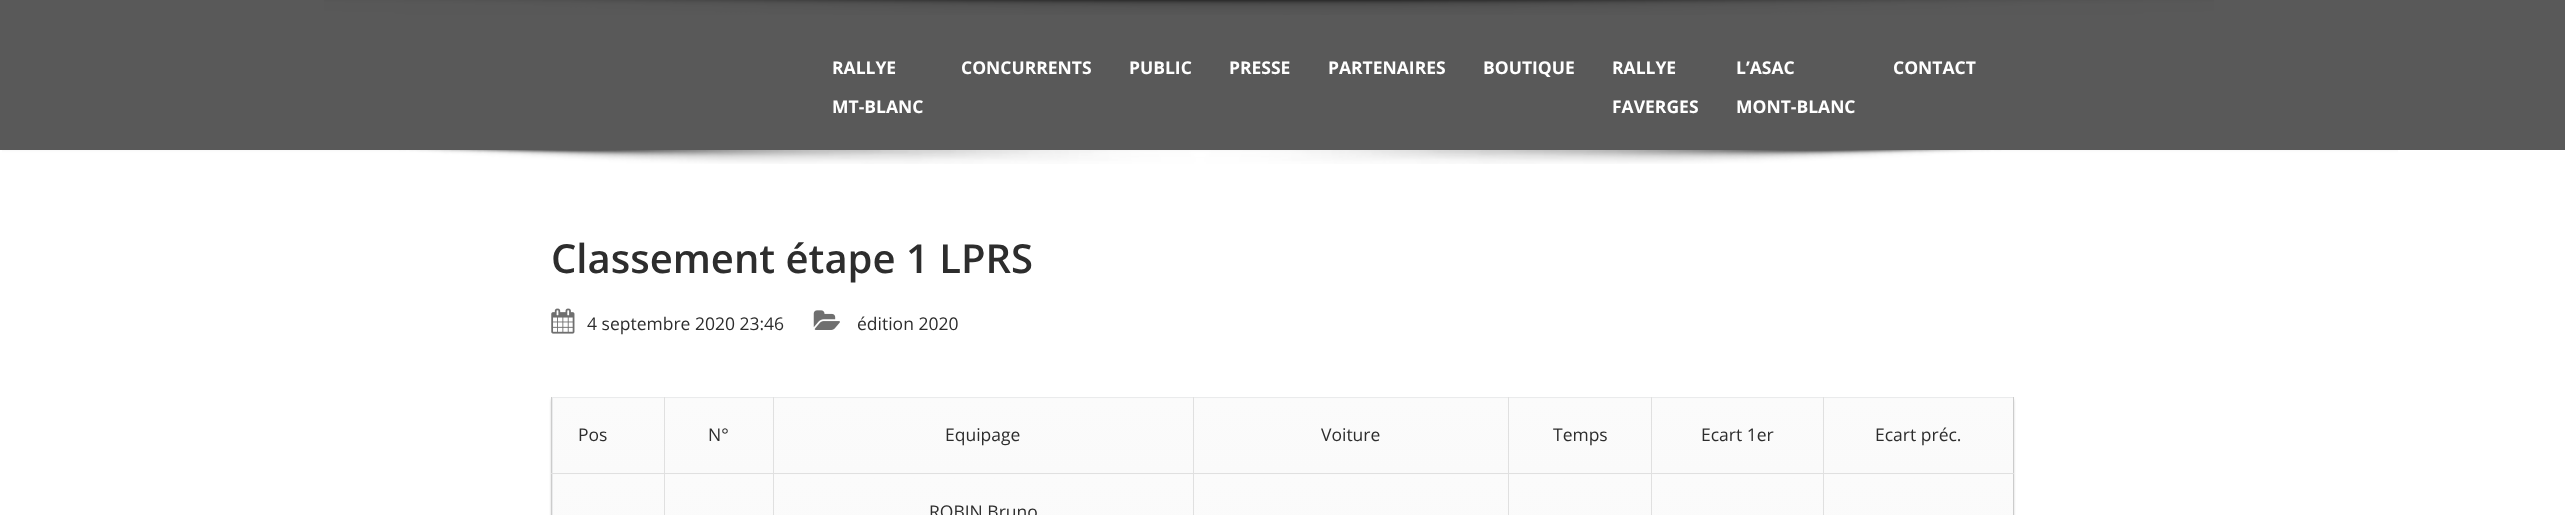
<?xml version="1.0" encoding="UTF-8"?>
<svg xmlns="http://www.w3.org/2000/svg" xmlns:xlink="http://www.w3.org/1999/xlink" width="2565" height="515">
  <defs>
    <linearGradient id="g1" gradientUnits="userSpaceOnUse" x1="1824" y1="325" x2="1824" y2="399"><stop offset="0" stop-color="#fbfbfb" /><stop offset="1" stop-color="#fafafa" /></linearGradient>
    <linearGradient id="g2" gradientUnits="userSpaceOnUse" x1="1824" y1="371" x2="1824" y2="475"><stop offset="0" stop-color="#fbfbfb" /><stop offset="1" stop-color="#fafafa" /></linearGradient>
    <linearGradient id="g3" gradientUnits="userSpaceOnUse" x1="553" y1="325" x2="553" y2="399"><stop offset="0" stop-color="#fbfbfb" /><stop offset="1" stop-color="#fafafa" /></linearGradient>
    <linearGradient id="g4" gradientUnits="userSpaceOnUse" x1="553" y1="399" x2="553" y2="473"><stop offset="0" stop-color="#fbfbfb" /><stop offset="1" stop-color="#fafafa" /></linearGradient>
    <linearGradient id="g5" gradientUnits="userSpaceOnUse" x1="1509" y1="325" x2="1509" y2="399"><stop offset="0" stop-color="#fbfbfb" /><stop offset="1" stop-color="#fafafa" /></linearGradient>
    <linearGradient id="g6" gradientUnits="userSpaceOnUse" x1="1509" y1="399" x2="1509" y2="473"><stop offset="0" stop-color="#fbfbfb" /><stop offset="1" stop-color="#fafafa" /></linearGradient>
    <linearGradient id="g7" gradientUnits="userSpaceOnUse" x1="1509" y1="371" x2="1509" y2="475"><stop offset="0" stop-color="#fbfbfb" /><stop offset="1" stop-color="#fafafa" /></linearGradient>
    <linearGradient id="g8" gradientUnits="userSpaceOnUse" x1="1509" y1="475" x2="1509" y2="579"><stop offset="0" stop-color="#fbfbfb" /><stop offset="1" stop-color="#fafafa" /></linearGradient>
    <linearGradient id="g9" gradientUnits="userSpaceOnUse" x1="1194" y1="325" x2="1194" y2="399"><stop offset="0" stop-color="#fbfbfb" /><stop offset="1" stop-color="#fafafa" /></linearGradient>
    <linearGradient id="g10" gradientUnits="userSpaceOnUse" x1="1194" y1="371" x2="1194" y2="475"><stop offset="0" stop-color="#fbfbfb" /><stop offset="1" stop-color="#fafafa" /></linearGradient>
    <linearGradient id="g11" gradientUnits="userSpaceOnUse" x1="665" y1="325" x2="665" y2="399"><stop offset="0" stop-color="#fbfbfb" /><stop offset="1" stop-color="#fafafa" /></linearGradient>
    <linearGradient id="g12" gradientUnits="userSpaceOnUse" x1="665" y1="371" x2="665" y2="475"><stop offset="0" stop-color="#fbfbfb" /><stop offset="1" stop-color="#fafafa" /></linearGradient>
    <linearGradient id="g13" gradientUnits="userSpaceOnUse" x1="665" y1="399" x2="665" y2="473"><stop offset="0" stop-color="#fbfbfb" /><stop offset="1" stop-color="#fafafa" /></linearGradient>
    <linearGradient id="g14" gradientUnits="userSpaceOnUse" x1="775" y1="325" x2="775" y2="399"><stop offset="0" stop-color="#fbfbfb" /><stop offset="1" stop-color="#fafafa" /></linearGradient>
    <linearGradient id="g15" gradientUnits="userSpaceOnUse" x1="775" y1="399" x2="775" y2="473"><stop offset="0" stop-color="#fbfbfb" /><stop offset="1" stop-color="#fafafa" /></linearGradient>
    <linearGradient id="g16" gradientUnits="userSpaceOnUse" x1="1194" y1="399" x2="1194" y2="473"><stop offset="0" stop-color="#fbfbfb" /><stop offset="1" stop-color="#fafafa" /></linearGradient>
    <linearGradient id="g17" gradientUnits="userSpaceOnUse" x1="1654" y1="325" x2="1654" y2="399"><stop offset="0" stop-color="#fbfbfb" /><stop offset="1" stop-color="#fafafa" /></linearGradient>
    <linearGradient id="g18" gradientUnits="userSpaceOnUse" x1="1654" y1="399" x2="1654" y2="473"><stop offset="0" stop-color="#fbfbfb" /><stop offset="1" stop-color="#fafafa" /></linearGradient>
    <linearGradient id="g19" gradientUnits="userSpaceOnUse" x1="1824" y1="399" x2="1824" y2="473"><stop offset="0" stop-color="#fbfbfb" /><stop offset="1" stop-color="#fafafa" /></linearGradient>
    <linearGradient id="g20" gradientUnits="userSpaceOnUse" x1="553" y1="371" x2="553" y2="475"><stop offset="0" stop-color="#fbfbfb" /><stop offset="1" stop-color="#fafafa" /></linearGradient>
    <linearGradient id="g21" gradientUnits="userSpaceOnUse" x1="553" y1="475" x2="553" y2="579"><stop offset="0" stop-color="#fbfbfb" /><stop offset="1" stop-color="#fafafa" /></linearGradient>
    <linearGradient id="g22" gradientUnits="userSpaceOnUse" x1="665" y1="475" x2="665" y2="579"><stop offset="0" stop-color="#fbfbfb" /><stop offset="1" stop-color="#fafafa" /></linearGradient>
    <linearGradient id="g23" gradientUnits="userSpaceOnUse" x1="775" y1="371" x2="775" y2="475"><stop offset="0" stop-color="#fbfbfb" /><stop offset="1" stop-color="#fafafa" /></linearGradient>
    <linearGradient id="g24" gradientUnits="userSpaceOnUse" x1="775" y1="475" x2="775" y2="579"><stop offset="0" stop-color="#fbfbfb" /><stop offset="1" stop-color="#fafafa" /></linearGradient>
    <linearGradient id="g25" gradientUnits="userSpaceOnUse" x1="1194" y1="475" x2="1194" y2="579"><stop offset="0" stop-color="#fbfbfb" /><stop offset="1" stop-color="#fafafa" /></linearGradient>
    <linearGradient id="g26" gradientUnits="userSpaceOnUse" x1="1654" y1="371" x2="1654" y2="475"><stop offset="0" stop-color="#fbfbfb" /><stop offset="1" stop-color="#fafafa" /></linearGradient>
    <linearGradient id="g27" gradientUnits="userSpaceOnUse" x1="1654" y1="475" x2="1654" y2="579"><stop offset="0" stop-color="#fbfbfb" /><stop offset="1" stop-color="#fafafa" /></linearGradient>
    <linearGradient id="g28" gradientUnits="userSpaceOnUse" x1="1824" y1="475" x2="1824" y2="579"><stop offset="0" stop-color="#fbfbfb" /><stop offset="1" stop-color="#fafafa" /></linearGradient>
  </defs>
  <rect width="100%" height="100%" fill="#ffffff" />
  <rect width="2565" height="150" fill="#595959" />
  <image x="324" y="0" width="1890" height="15" xlink:href="image1.png" />
  <image x="2" y="150" width="2396" height="14" xlink:href="image2.png" />
  <image x="551" y="308" width="24" height="26" xlink:href="image3.png" />
  <image x="813" y="310" width="27" height="20" xlink:href="image4.png" />
  <rect x="551" y="398" width="1463" height="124" rx="4" fill="#d1d1d1" filter="blur(1px)" />
  <rect x="551" y="396" width="1463" height="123" rx="4" fill="#eaebec" />
  <rect x="1823" y="398" width="191" height="1" fill="url(#g1)" />
  <rect x="1823" y="474" width="191" height="1" fill="url(#g2)" />
  <rect x="2013" y="396" width="1" height="119" fill="#cccccc" />
  <rect x="551" y="396" width="1" height="119" fill="#cccccc" />
  <rect x="553" y="398" width="111" height="1" fill="url(#g3)" />
  <rect x="553" y="399" width="111" height="74" fill="url(#g4)" />
  <rect x="1823" y="396" width="191" height="1" fill="#ffffff" />
  <rect x="1823" y="473" width="1" height="42" fill="#e0e0e0" />
  <rect x="1823" y="473" width="191" height="1" fill="#e0e0e0" />
  <rect x="1823" y="396" width="1" height="78" fill="#e0e0e0" />
  <rect x="1651" y="396" width="173" height="1" fill="#ffffff" />
  <rect x="1508" y="398" width="145" height="1" fill="url(#g5)" />
  <rect x="1509" y="399" width="144" height="74" fill="url(#g6)" />
  <rect x="1508" y="474" width="145" height="1" fill="url(#g7)" />
  <rect x="1509" y="475" width="144" height="40" fill="url(#g8)" />
  <rect x="1651" y="473" width="1" height="42" fill="#e0e0e0" />
  <rect x="1651" y="473" width="173" height="1" fill="#e0e0e0" />
  <rect x="1651" y="396" width="1" height="78" fill="#e0e0e0" />
  <rect x="1508" y="396" width="145" height="1" fill="#ffffff" />
  <rect x="1508" y="473" width="1" height="42" fill="#e0e0e0" />
  <rect x="1508" y="473" width="145" height="1" fill="#e0e0e0" />
  <rect x="1508" y="396" width="1" height="78" fill="#e0e0e0" />
  <rect x="1193" y="396" width="316" height="1" fill="#ffffff" />
  <rect x="1193" y="398" width="315" height="1" fill="url(#g9)" />
  <rect x="1193" y="474" width="315" height="1" fill="url(#g10)" />
  <rect x="1193" y="473" width="1" height="42" fill="#e0e0e0" />
  <rect x="1193" y="473" width="316" height="1" fill="#e0e0e0" />
  <rect x="1193" y="396" width="1" height="78" fill="#e0e0e0" />
  <rect x="773" y="396" width="421" height="1" fill="#ffffff" />
  <rect x="664" y="398" width="110" height="1" fill="url(#g11)" />
  <rect x="664" y="474" width="110" height="1" fill="url(#g12)" />
  <rect x="773" y="473" width="1" height="42" fill="#e0e0e0" />
  <rect x="773" y="473" width="421" height="1" fill="#e0e0e0" />
  <rect x="773" y="396" width="1" height="78" fill="#e0e0e0" />
  <rect x="664" y="396" width="110" height="1" fill="#ffffff" />
  <rect x="664" y="473" width="1" height="42" fill="#e0e0e0" />
  <rect x="664" y="473" width="110" height="1" fill="#e0e0e0" />
  <rect x="664" y="396" width="1" height="78" fill="#e0e0e0" />
  <rect x="551" y="396" width="114" height="1" fill="#ffffff" />
  <rect x="551" y="473" width="114" height="1" fill="#e0e0e0" />
  <rect x="665" y="399" width="108" height="74" fill="url(#g13)" />
  <rect x="774" y="398" width="419" height="1" fill="url(#g14)" />
  <rect x="774" y="399" width="419" height="74" fill="url(#g15)" />
  <rect x="1194" y="399" width="314" height="74" fill="url(#g16)" />
  <rect x="1653" y="398" width="170" height="1" fill="url(#g17)" />
  <rect x="1653" y="399" width="170" height="74" fill="url(#g18)" />
  <rect x="1824" y="399" width="189" height="74" fill="url(#g19)" />
  <rect x="553" y="474" width="111" height="1" fill="url(#g20)" />
  <rect x="553" y="475" width="111" height="40" fill="url(#g21)" />
  <rect x="665" y="475" width="108" height="40" fill="url(#g22)" />
  <rect x="774" y="474" width="419" height="1" fill="url(#g23)" />
  <rect x="774" y="475" width="419" height="40" fill="url(#g24)" />
  <rect x="1194" y="475" width="314" height="40" fill="url(#g25)" />
  <rect x="1653" y="474" width="170" height="1" fill="url(#g26)" />
  <rect x="1653" y="475" width="170" height="40" fill="url(#g27)" />
  <rect x="1824" y="475" width="189" height="40" fill="url(#g28)" />
  <text x="832" y="74" style="font-family: Open Sans; font-size: 17.5px; font-weight: bold; fill: #ffffff">RALLYE</text>
  <text x="832" y="113" style="font-family: Open Sans; font-size: 17.5px; font-weight: bold; fill: #ffffff">MT-BLANC</text>
  <text x="961" y="74" style="font-family: Open Sans; font-size: 17.5px; font-weight: bold; fill: #ffffff">CONCURRENTS</text>
  <text x="1129" y="74" style="font-family: Open Sans; font-size: 17.5px; font-weight: bold; fill: #ffffff">PUBLIC</text>
  <text x="1229" y="74" style="font-family: Open Sans; font-size: 17.5px; font-weight: bold; fill: #ffffff">PRESSE</text>
  <text x="1328" y="74" style="font-family: Open Sans; font-size: 17.5px; font-weight: bold; fill: #ffffff">PARTENAIRES</text>
  <text x="1483" y="74" style="font-family: Open Sans; font-size: 17.5px; font-weight: bold; fill: #ffffff">BOUTIQUE</text>
  <text x="1612" y="74" style="font-family: Open Sans; font-size: 17.5px; font-weight: bold; fill: #ffffff">RALLYE</text>
  <text x="1612" y="113" style="font-family: Open Sans; font-size: 17.5px; font-weight: bold; fill: #ffffff">FAVERGES</text>
  <text x="1736" y="74" style="font-family: Open Sans; font-size: 17.5px; font-weight: bold; fill: #ffffff">L’ASAC</text>
  <text x="1736" y="113" style="font-family: Open Sans; font-size: 17.5px; font-weight: bold; fill: #ffffff">MONT-BLANC</text>
  <text x="1893" y="74" style="font-family: Open Sans; font-size: 17.5px; font-weight: bold; fill: #ffffff">CONTACT</text>
  <text x="551" y="273" style="font-family: Open Sans; font-size: 40px; font-weight: 600; fill: #2d2d2d">Classement étape 1 LPRS</text>
  <text x="587" y="330" style="font-family: Open Sans; font-size: 17.5px; fill: #2d2d2d">4 septembre 2020 23:46</text>
  <text x="857" y="330" style="font-family: Open Sans; font-size: 17.5px; fill: #2d2d2d">édition 2020</text>
  <text x="578" y="441" style="font-family: Open Sans; font-size: 17.5px; fill: #2d2d2d">Pos</text>
  <text x="708" y="441" style="font-family: Open Sans; font-size: 17.5px; fill: #2d2d2d">N°</text>
  <text x="945" y="441" style="font-family: Open Sans; font-size: 17.5px; fill: #2d2d2d">Equipage</text>
  <text x="1321" y="441" style="font-family: Open Sans; font-size: 17.5px; fill: #2d2d2d">Voiture</text>
  <text x="1553" y="441" style="font-family: Open Sans; font-size: 17.5px; fill: #2d2d2d">Temps</text>
  <text x="1701" y="441" style="font-family: Open Sans; font-size: 17.5px; fill: #2d2d2d">Ecart 1er</text>
  <text x="1875" y="441" style="font-family: Open Sans; font-size: 17.5px; fill: #2d2d2d">Ecart préc.</text>
  <text x="929" y="518" style="font-family: Open Sans; font-size: 17.5px; fill: #2d2d2d">ROBIN Bruno</text>
</svg>
